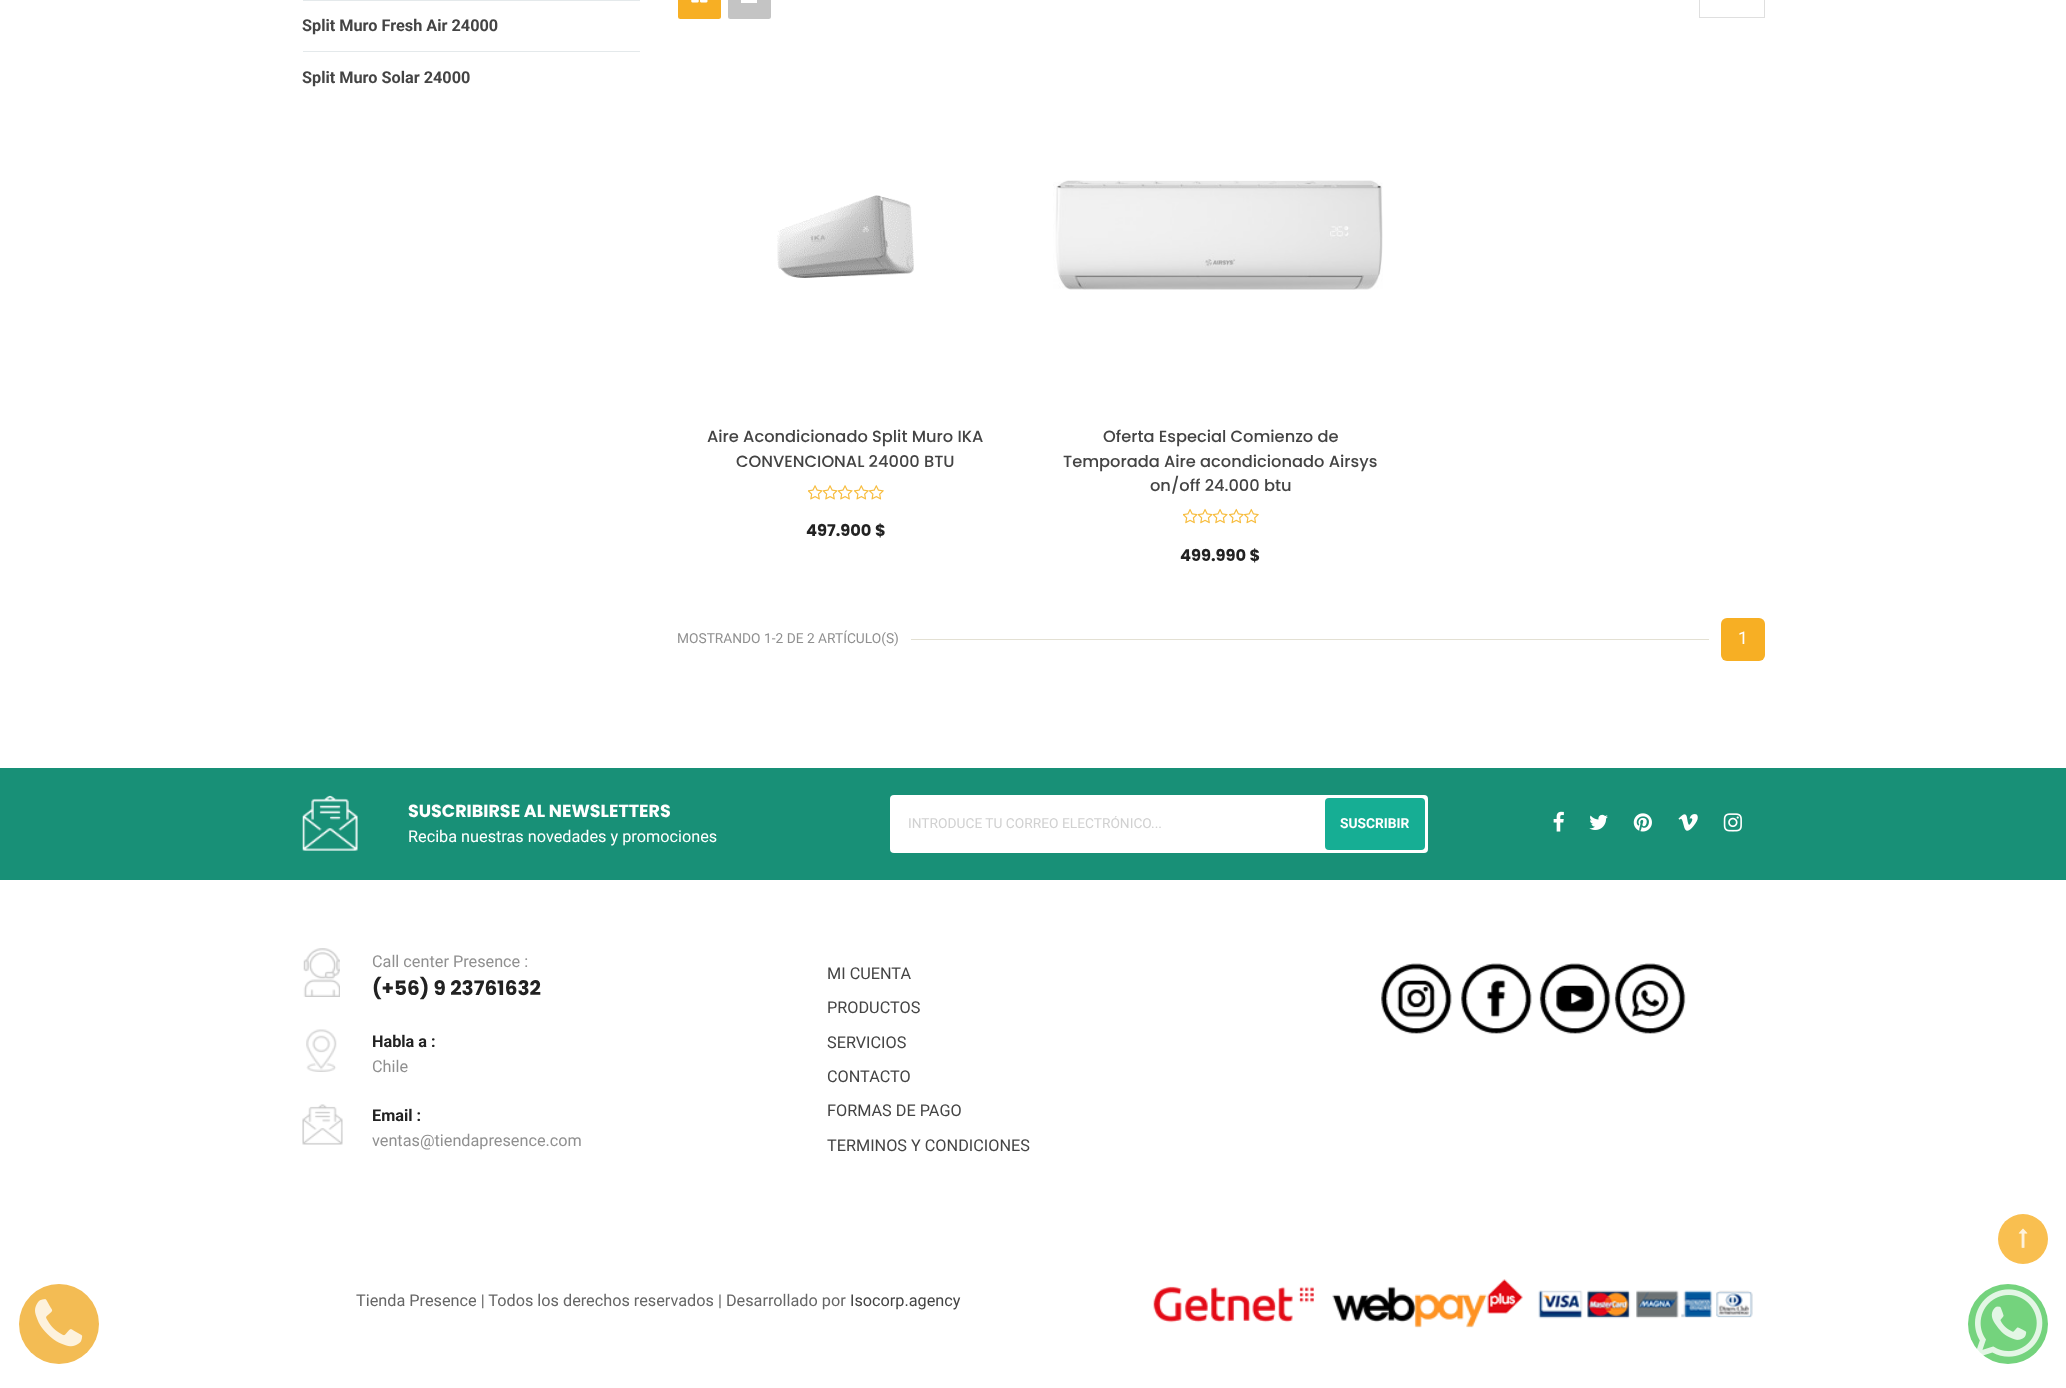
<?xml version="1.0" encoding="UTF-8"?>
<svg xmlns="http://www.w3.org/2000/svg" xmlns:xlink="http://www.w3.org/1999/xlink" width="2066" height="1388">
  <defs>
    <clipPath id="clip1"><rect x="909" y="816" width="500" height="17" /></clipPath>
  </defs>
  <rect width="100%" height="100%" fill="#ffffff" />
  <rect x="303" width="337" height="1" fill="#e4e9eb" />
  <rect x="303" y="51" width="337" height="1" fill="#e4e9eb" />
  <rect x="678" y="-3" width="43" height="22" rx="2.5" fill="#f7af24" />
  <image x="691" y="0" width="17" height="3" xlink:href="image1.png" />
  <rect x="728" y="-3" width="43" height="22" rx="2.5" fill="#c4c4c4" />
  <rect x="741" width="16" height="3" fill="#ffffff" />
  <rect x="1699.5" y="-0.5" width="65" height="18" fill="none" stroke="#dfdfdf" />
  <image x="777" y="195" width="137" height="83" xlink:href="image2.png" />
  <image x="808" y="485" width="15" height="15" xlink:href="image3.png" />
  <image x="823" y="485" width="15" height="15" xlink:href="image3.png" />
  <image x="838" y="485" width="15" height="15" xlink:href="image3.png" />
  <image x="854" y="485" width="15" height="15" xlink:href="image4.png" />
  <image x="869" y="485" width="15" height="15" xlink:href="image4.png" />
  <image x="1053" y="180" width="330" height="110" xlink:href="image5.png" />
  <image x="1183" y="508" width="15" height="16" xlink:href="image6.png" />
  <image x="1198" y="508" width="15" height="16" xlink:href="image6.png" />
  <image x="1213" y="508" width="15" height="16" xlink:href="image6.png" />
  <image x="1229" y="508" width="15" height="16" xlink:href="image7.png" />
  <image x="1244" y="508" width="15" height="16" xlink:href="image7.png" />
  <rect x="1721" y="618" width="44" height="43" rx="6" fill="#f7af24" />
  <rect x="911" y="639" width="798" height="1" fill="#e3e0d3" />
  <rect y="768" width="2066" height="112" fill="#189077" />
  <image x="302" y="795" width="56" height="56" xlink:href="image8.png" />
  <rect x="890" y="795" width="538" height="58" rx="4" fill="#ffffff" />
  <rect x="1325" y="798" width="100" height="52" rx="4" fill="#16ae94" />
  <image x="1553" y="811" width="11" height="21" xlink:href="image9.png" />
  <image x="1589" y="814" width="19" height="16" xlink:href="image10.png" />
  <image x="1633" y="813" width="19" height="19" xlink:href="image11.png" />
  <image x="1678" y="814" width="20" height="17" xlink:href="image12.png" />
  <image x="1723" y="813" width="19" height="19" xlink:href="image13.png" />
  <image x="303" y="948" width="37" height="49" xlink:href="image14.png" />
  <image x="306" y="1029" width="31" height="43" xlink:href="image15.png" />
  <image x="302" y="1104" width="41" height="41" xlink:href="image16.png" />
  <image x="1381" y="963" width="71" height="71" xlink:href="image17.png" />
  <image x="1461" y="963" width="71" height="71" xlink:href="image18.png" />
  <image x="1539" y="963" width="72" height="71" xlink:href="image19.png" />
  <image x="1614" y="963" width="72" height="71" xlink:href="image20.png" />
  <image x="1153" y="1279" width="600" height="49" xlink:href="image21.png" />
  <circle cx="2023" cy="1239" r="25" fill="#f9bf50" />
  <image x="2018" y="1228" width="10" height="20" xlink:href="image22.png" />
  <circle cx="59" cy="1324" r="40" fill="#f3bc54" />
  <image x="35" y="1299" width="48" height="48" xlink:href="image23.png" />
  <circle cx="2008" cy="1324" r="40" fill="#74d37d" />
  <image x="1975" y="1289" width="68" height="68" xlink:href="image24.png" />
  <text x="302" y="31" style="font-family: Roboto; font-size: 16.25px; font-weight: bold; fill: #444444">Split Muro Fresh Air 24000</text>
  <text x="302" y="83" style="font-family: Roboto; font-size: 16.25px; font-weight: bold; fill: #444444">Split Muro Solar 24000</text>
  <text x="707" y="442" style="font-family: Poppins; font-size: 16.25px; font-weight: 500; fill: #444444">Aire Acondicionado Split Muro IKA</text>
  <text x="736" y="467" style="font-family: Poppins; font-size: 16.25px; font-weight: 500; fill: #444444">CONVENCIONAL 24000 BTU</text>
  <text x="806" y="536" style="font-family: Poppins; font-size: 16.25px; font-weight: bold; fill: #222222">497.900 $</text>
  <text x="1103" y="442" style="font-family: Poppins; font-size: 16.25px; font-weight: 500; fill: #444444">Oferta Especial Comienzo de</text>
  <text x="1063" y="467" style="font-family: Poppins; font-size: 16.25px; font-weight: 500; fill: #444444">Temporada Aire acondicionado Airsys</text>
  <text x="1150" y="491" style="font-family: Poppins; font-size: 16.25px; font-weight: 500; fill: #444444">on/off 24.000 btu</text>
  <text x="1180" y="561" style="font-family: Poppins; font-size: 16.25px; font-weight: bold; fill: #222222">499.990 $</text>
  <text x="677" y="643" style="font-family: Roboto; font-size: 13.75px; fill: #909090">MOSTRANDO 1-2 DE 2 ARTÍCULO(S)</text>
  <text x="1738" y="644" style="font-family: Roboto; font-size: 17.5px; fill: #ffffff">1</text>
  <text x="408" y="817" style="font-family: Poppins; font-size: 17.5px; font-weight: bold; fill: #ffffff">SUSCRIBIRSE AL NEWSLETTERS</text>
  <text x="408" y="842" style="font-family: Roboto; font-size: 16.25px; fill: #ffffff">Reciba nuestras novedades y promociones</text>
  <g clip-path="url(#clip1)">
    <text x="908" y="828" style="font-family: Roboto; font-size: 13.75px; fill: #d1d1d1">INTRODUCE TU CORREO ELECTRÓNICO...</text>
  </g>
  <text x="1340" y="828" style="font-family: Roboto; font-size: 13.75px; font-weight: bold; fill: #ffffff">SUSCRIBIR</text>
  <text x="372" y="967" style="font-family: Roboto; font-size: 16.25px; fill: #909090">Call center Presence :</text>
  <text x="372" y="995" style="font-family: Poppins; font-size: 20px; font-weight: bold; fill: #222222">(+56) 9 23761632</text>
  <text x="372" y="1047" style="font-family: Roboto; font-size: 16.25px; font-weight: bold; fill: #222222">Habla a :</text>
  <text x="372" y="1072" style="font-family: Roboto; font-size: 16.25px; fill: #909090">Chile</text>
  <text x="372" y="1121" style="font-family: Roboto; font-size: 16.25px; font-weight: bold; fill: #222222">Email :</text>
  <text x="372" y="1146" style="font-family: Roboto; font-size: 16.25px; fill: #909090">ventas@tiendapresence.com</text>
  <text x="827" y="979" style="font-family: Roboto; font-size: 16.25px; fill: #444444">MI CUENTA</text>
  <text x="827" y="1013" style="font-family: Roboto; font-size: 16.25px; fill: #444444">PRODUCTOS</text>
  <text x="827" y="1048" style="font-family: Roboto; font-size: 16.25px; fill: #444444">SERVICIOS</text>
  <text x="827" y="1082" style="font-family: Roboto; font-size: 16.25px; fill: #444444">CONTACTO</text>
  <text x="827" y="1116" style="font-family: Roboto; font-size: 16.25px; fill: #444444">FORMAS DE PAGO</text>
  <text x="827" y="1151" style="font-family: Roboto; font-size: 16.25px; fill: #444444">TERMINOS Y CONDICIONES</text>
  <text x="356" y="1306" style="font-family: Roboto; font-size: 16.25px; fill: #666666">Tienda Presence | Todos los derechos reservados | Desarrollado por</text>
  <text x="850" y="1306" style="font-family: Roboto; font-size: 16.25px; fill: #444444">Isocorp.agency</text>
</svg>
